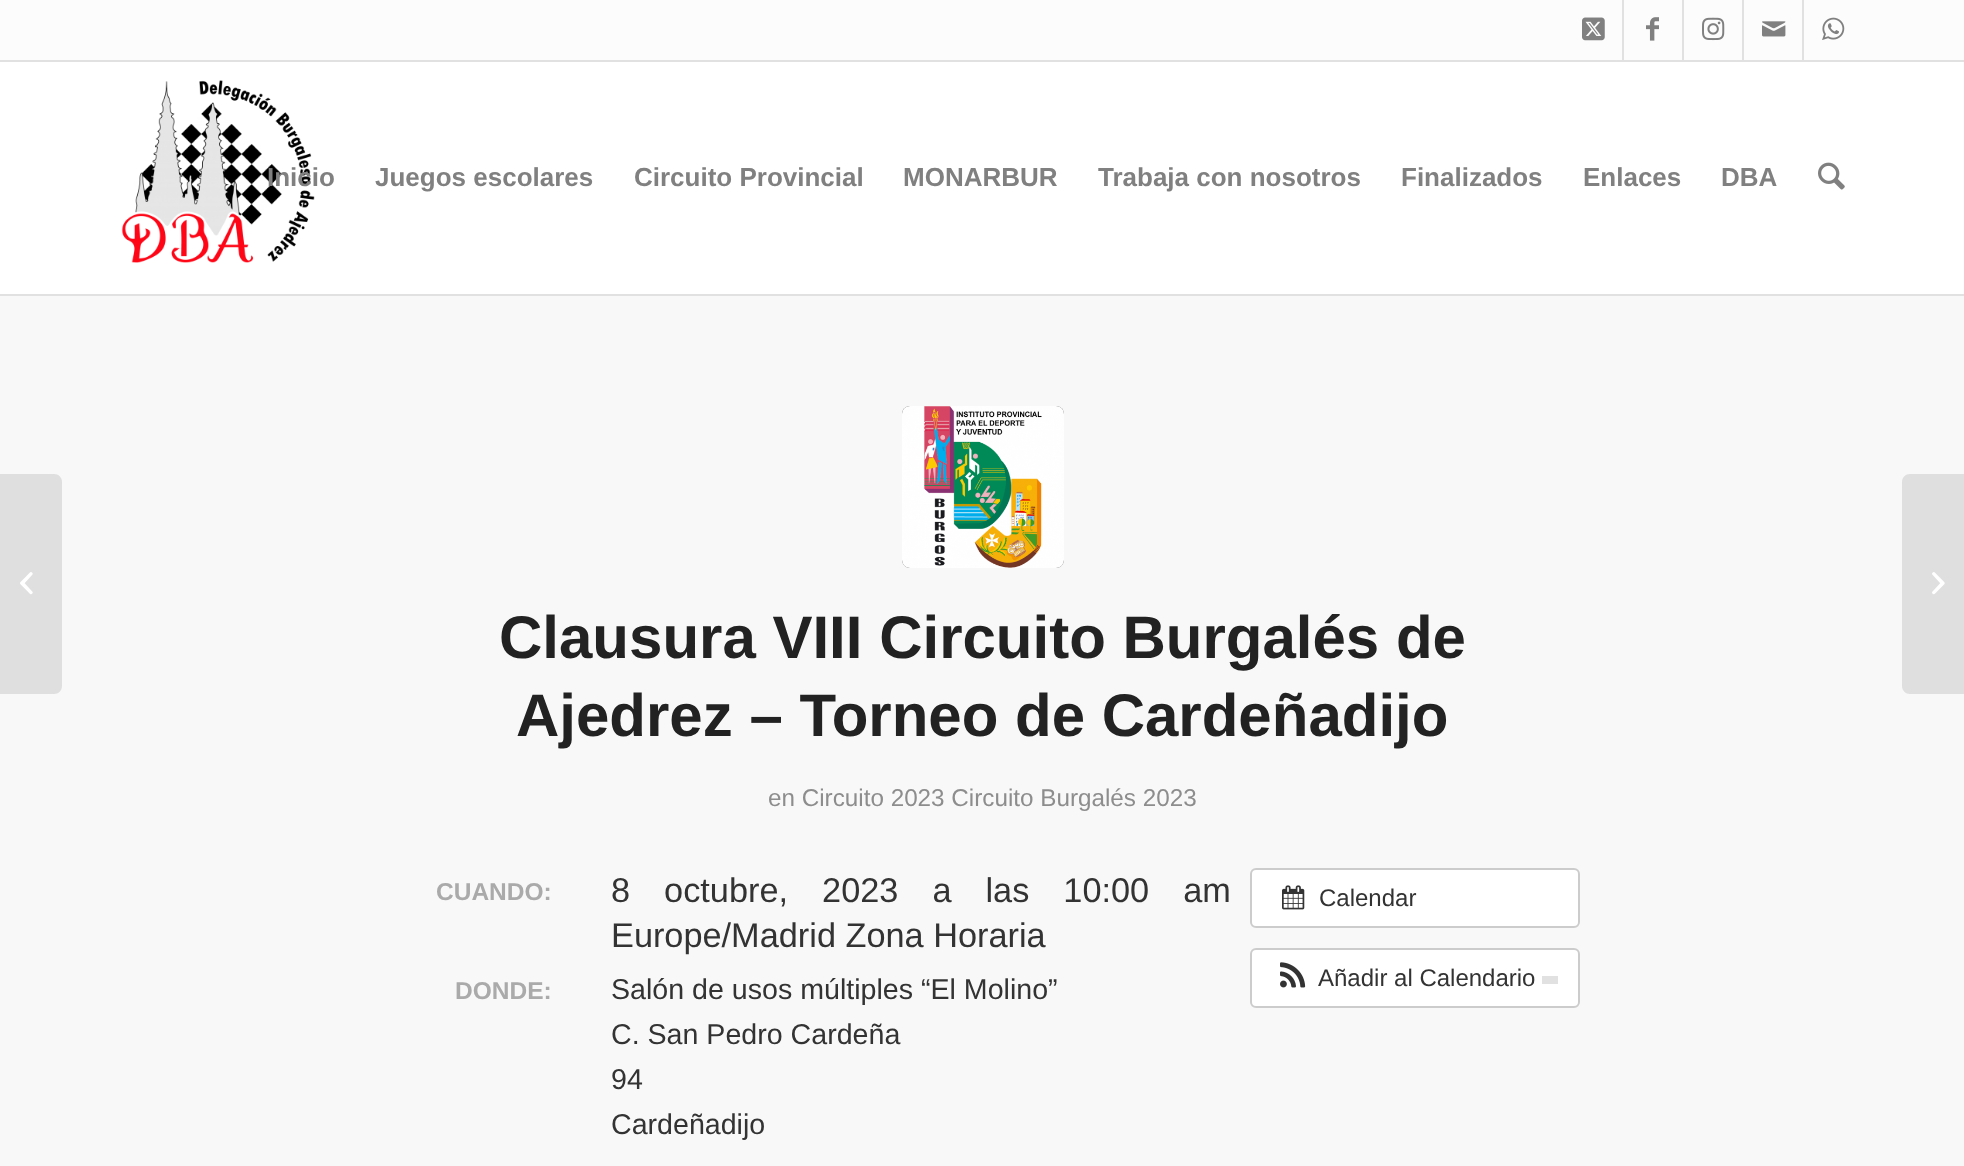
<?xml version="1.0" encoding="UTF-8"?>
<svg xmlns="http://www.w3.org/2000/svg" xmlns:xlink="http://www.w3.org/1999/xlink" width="1964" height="1166">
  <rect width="100%" height="100%" fill="#f8f8f8" />
  <rect width="1964" height="60" fill="#fcfcfc" />
  <rect y="60" width="1964" height="2" fill="#e1e1e1" />
  <rect x="1622" width="2" height="60" fill="#e1e1e1" />
  <image x="1582" y="17" width="23" height="24" xlink:href="image1.png" />
  <rect x="1682" width="2" height="60" fill="#e1e1e1" />
  <image x="1646" y="17" width="13" height="24" xlink:href="image2.png" />
  <rect x="1742" width="2" height="60" fill="#e1e1e1" />
  <image x="1702" y="17" width="23" height="24" xlink:href="image3.png" />
  <rect x="1802" width="2" height="60" fill="#e1e1e1" />
  <image x="1762" y="21" width="24" height="16" xlink:href="image4.png" />
  <image x="1822" y="17" width="23" height="23" xlink:href="image5.png" />
  <rect y="62" width="1964" height="232" fill="#ffffff" />
  <rect y="294" width="1964" height="2" fill="#e1e1e1" />
  <image x="121" y="80" width="194" height="183" xlink:href="image6.png" />
  <image x="1818" y="162" width="27" height="28" xlink:href="image7.png" />
  <path d="M 0 474 h 54 c 4.5 0 8 3.5 8 8 v 204 c 0 4.5 -3.5 8 -8 8 h -54 z" fill="#dfdfdf" />
  <image x="20" y="572" width="13" height="23" xlink:href="image8.png" />
  <path d="M 1910 474 h 54 v 220 h -54 c -4.5 0 -8 -3.5 -8 -8 v -204 c 0 -4.5 3.5 -8 8 -8 z" fill="#dfdfdf" />
  <image x="1932" y="572" width="13" height="23" xlink:href="image9.png" />
  <rect x="902" y="406" width="162" height="162" rx="8" fill="#8d8d8d" />
  <image x="902" y="406" width="162" height="162" xlink:href="image10.png" />
  <rect x="1251" y="869" width="328" height="58" rx="5" fill="#ffffff" stroke="#cccccc" stroke-width="2" />
  <image x="1282" y="885" width="23" height="25" xlink:href="image11.png" />
  <rect x="1251" y="949" width="328" height="58" rx="5" fill="#ffffff" stroke="#cccccc" stroke-width="2" />
  <image x="1280" y="962" width="26" height="26" xlink:href="image12.png" />
  <rect x="1542" y="976" width="16" height="8" fill="#e1e1e1" />
  <text x="267" y="186" style="font-family: Liberation Sans; font-size: 26px; font-weight: bold; fill: #808080">Inicio</text>
  <text x="375" y="186" style="font-family: Liberation Sans; font-size: 26px; font-weight: bold; fill: #808080">Juegos escolares</text>
  <text x="634" y="186" style="font-family: Liberation Sans; font-size: 26px; font-weight: bold; fill: #808080">Circuito Provincial</text>
  <text x="903" y="186" style="font-family: Liberation Sans; font-size: 26px; font-weight: bold; fill: #808080">MONARBUR</text>
  <text x="1098" y="186" style="font-family: Liberation Sans; font-size: 26px; font-weight: bold; fill: #808080">Trabaja con nosotros</text>
  <text x="1401" y="186" style="font-family: Liberation Sans; font-size: 26px; font-weight: bold; fill: #808080">Finalizados</text>
  <text x="1583" y="186" style="font-family: Liberation Sans; font-size: 26px; font-weight: bold; fill: #808080">Enlaces</text>
  <text x="1721" y="186" style="font-family: Liberation Sans; font-size: 26px; font-weight: bold; fill: #808080">DBA</text>
  <text x="499" y="658" style="font-family: Liberation Sans; font-size: 60px; font-weight: bold; fill: #222222">Clausura VIII Circuito Burgalés de</text>
  <text x="516" y="736" style="font-family: Liberation Sans; font-size: 60px; font-weight: bold; fill: #222222">Ajedrez – Torneo de Cardeñadijo</text>
  <text x="768" y="806" style="font-family: Liberation Sans; font-size: 24.25px; fill: #8d8d8d">en Circuito 2023 Circuito Burgalés 2023</text>
  <text x="436" y="900" style="font-family: Liberation Sans; font-size: 24.5px; font-weight: bold; fill: #aaaaaa">CUANDO:</text>
  <text x="611" y="902" word-spacing="24.5" style="font-family: Liberation Sans; font-size: 34.3px; fill: #333333">8 octubre, 2023 a las 10:00 am</text>
  <text x="611" y="947" style="font-family: Liberation Sans; font-size: 34.3px; fill: #333333">Europe/Madrid Zona Horaria</text>
  <text x="455" y="999" style="font-family: Liberation Sans; font-size: 24.5px; font-weight: bold; fill: #aaaaaa">DONDE:</text>
  <text x="611" y="999" style="font-family: Liberation Sans; font-size: 28.6px; fill: #333333">Salón de usos múltiples “El Molino”</text>
  <text x="611" y="1044" style="font-family: Liberation Sans; font-size: 28.6px; fill: #333333">C. San Pedro Cardeña</text>
  <text x="611" y="1089" style="font-family: Liberation Sans; font-size: 28.6px; fill: #333333">94</text>
  <text x="611" y="1134" style="font-family: Liberation Sans; font-size: 28.6px; fill: #333333">Cardeñadijo</text>
  <text x="1319" y="906" style="font-family: Liberation Sans; font-size: 24px; fill: #333333">Calendar</text>
  <text x="1318" y="986" style="font-family: Liberation Sans; font-size: 24px; fill: #333333">Añadir al Calendario</text>
</svg>
